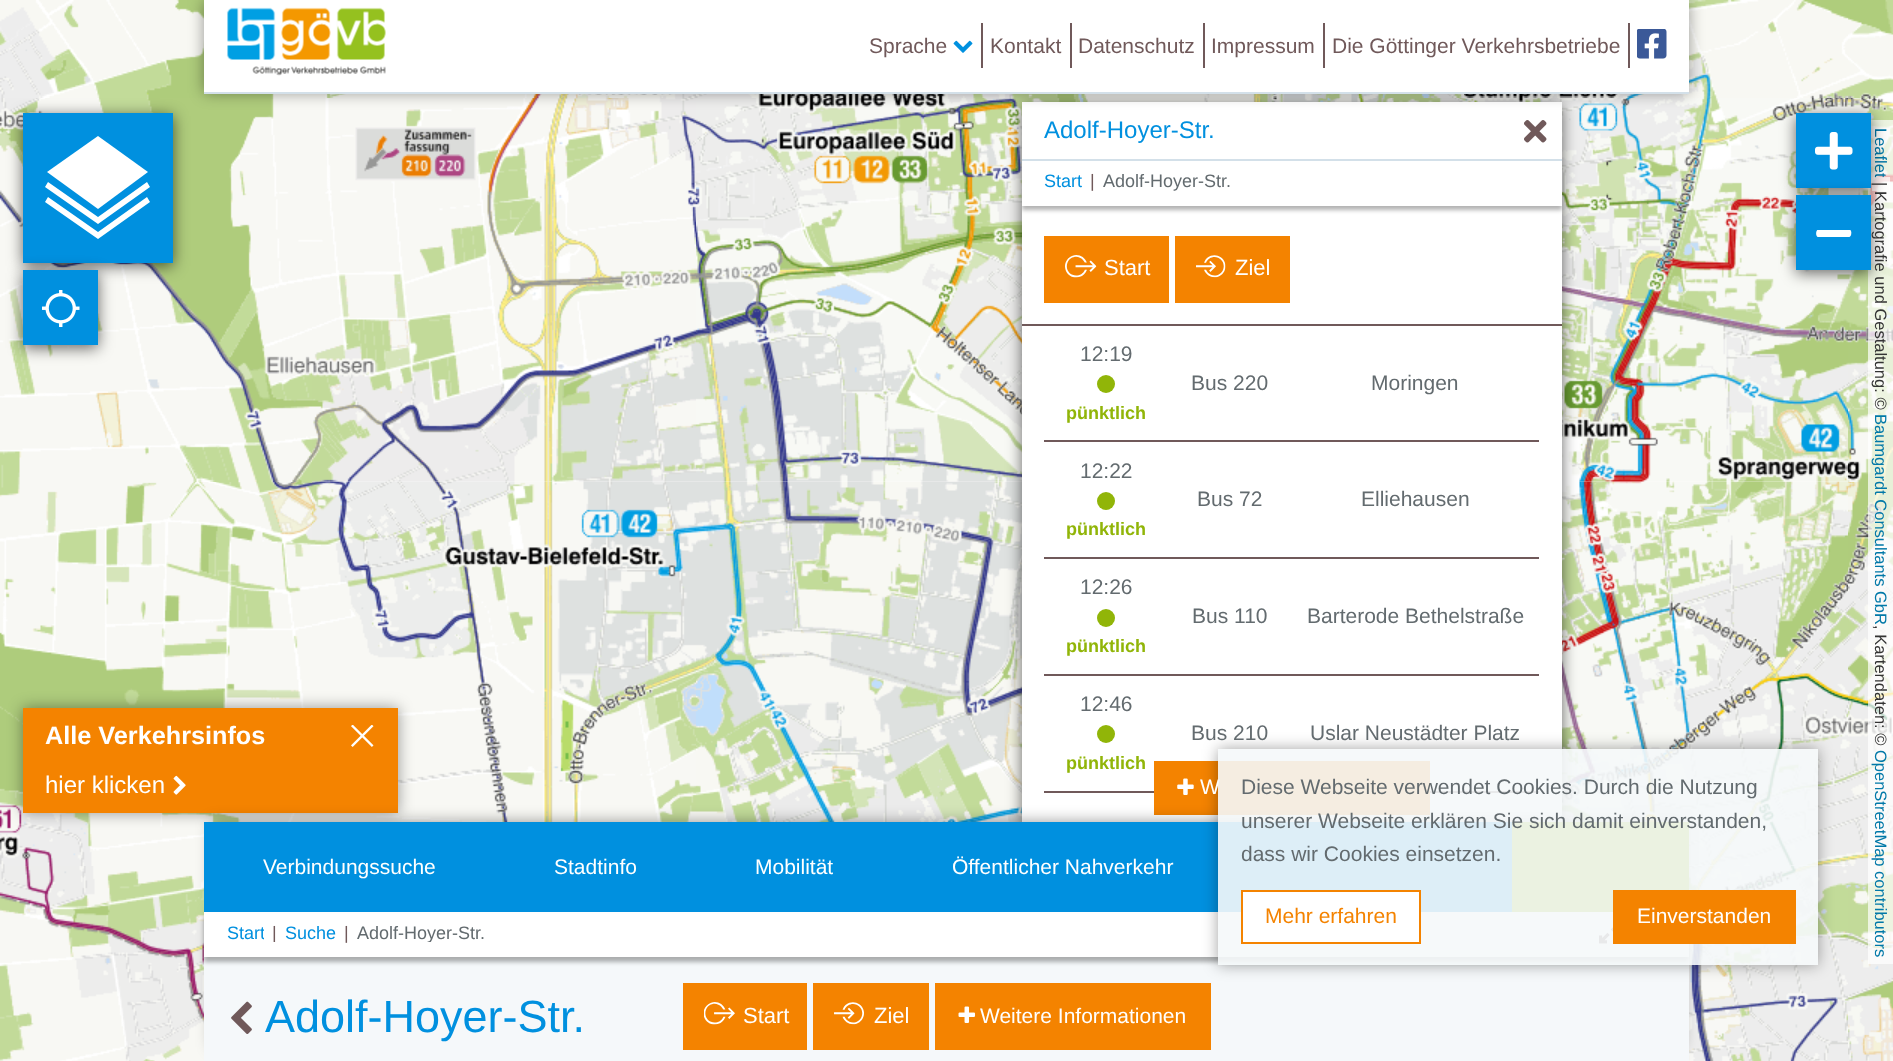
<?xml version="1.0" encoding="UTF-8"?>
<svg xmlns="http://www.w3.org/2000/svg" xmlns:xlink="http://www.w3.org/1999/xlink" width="1893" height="1061">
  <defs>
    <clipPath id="clip1"><rect x="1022" y="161" width="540" height="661" /></clipPath>
    <clipPath id="clip2"><path d="M 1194 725 h 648 v 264 h -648 z m 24 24 h 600 v 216 h -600 z" clip-rule="evenodd" /></clipPath>
    <clipPath id="clip3"><rect x="1815" y="230" width="38" height="7" /></clipPath>
    <clipPath id="clip4"><rect x="227" y="924" width="37" height="18" /></clipPath>
    <clipPath id="clip5"><rect x="264" y="924" width="72" height="18" /></clipPath>
    <clipPath id="clip6"><rect x="336" y="924" width="149" height="18" /></clipPath>
  </defs>
  <rect width="100%" height="100%" fill="#ffffff" />
  <image x="696" y="481" width="326" height="341" xlink:href="image26.png" />
  <image x="696" y="97" width="384" height="385" xlink:href="image20.png" />
  <image x="696" y="94" width="384" height="4" xlink:href="image14.png" />
  <image x="1080" y="97" width="384" height="5" xlink:href="image21.png" />
  <image x="1080" y="94" width="384" height="4" xlink:href="image15.png" />
  <image x="1562" y="481" width="286" height="385" xlink:href="image27.png" />
  <image x="1464" y="97" width="384" height="385" xlink:href="image22.png" />
  <image x="1464" y="0" width="384" height="98" xlink:href="image16.png" />
  <rect x="1022" y="105" width="540" height="720" fill="#000000" fill-opacity="0.6" filter="blur(7.5px)" />
  <rect x="1022" y="102" width="540" height="720" fill="#ffffff" />
  <image x="0" y="0" width="312" height="98" xlink:href="image12.png" />
  <image x="312" y="481" width="384" height="341" xlink:href="image25.png" />
  <image x="312" y="97" width="384" height="385" xlink:href="image19.png" />
  <image x="312" y="94" width="384" height="4" xlink:href="image13.png" />
  <image x="0" y="98" width="312" height="384" xlink:href="image18.png" />
  <rect x="204" width="1485" height="93" fill="#000000" fill-opacity="0.4" filter="blur(7.5px)" />
  <rect x="204" width="1485" height="92" fill="#ffffff" />
  <rect x="204" y="92" width="1485" height="2" fill="#d3e0e9" />
  <image x="226" y="7" width="160" height="69" xlink:href="image1.png" />
  <image x="953" y="40" width="20" height="13" xlink:href="image2.png" />
  <rect x="981" y="23" width="2" height="45" fill="#70595a" />
  <rect x="1070" y="23" width="2" height="45" fill="#70595a" />
  <rect x="1203" y="23" width="2" height="45" fill="#70595a" />
  <rect x="1323" y="23" width="2" height="45" fill="#70595a" />
  <rect x="1628" y="23" width="2" height="45" fill="#70595a" />
  <image x="1637" y="29" width="30" height="30" xlink:href="image3.png" />
  <rect x="23" y="116" width="150" height="150" fill="#000000" fill-opacity="0.6" filter="blur(7.5px)" />
  <rect x="23" y="113" width="150" height="150" fill="#0090df" />
  <path d="M 98 209 l -51 -37 l 51 -36 l 50 36 z" fill="#ffffff" />
  <path d="M 98 239 l -53 -37 l 3 -5 l 50 35 l 49 -35 l 3 5 z" fill="#ffffff" />
  <path d="M 98 224 l -53 -37 l 3 -5 l 50 35 l 49 -35 l 3 5 z" fill="#ffffff" />
  <rect x="23" y="273" width="75" height="75" fill="#000000" fill-opacity="0.6" filter="blur(7.5px)" />
  <rect x="23" y="270" width="75" height="75" fill="#0090df" />
  <image x="42" y="290" width="38" height="37" xlink:href="image4.png" />
  <rect x="1022" y="159" width="540" height="2" fill="#d3e0e9" />
  <image x="1524" y="120" width="23" height="23" xlink:href="image5.png" />
  <g clip-path="url(#clip1)">
    <rect x="1022" y="165" width="540" height="45" fill="#000000" fill-opacity="0.3" filter="blur(2px)" />
  </g>
  <rect x="1022" y="161" width="540" height="45" fill="#ffffff" />
  <rect x="1044" y="236" width="125" height="67" fill="#f48300" />
  <image x="1065" y="255" width="32" height="23" xlink:href="image6.png" />
  <rect x="1175" y="236" width="115" height="67" fill="#f48300" />
  <image x="1196" y="255" width="30" height="23" xlink:href="image7.png" />
  <rect x="1022" y="324" width="540" height="2" fill="#70595a" />
  <rect x="1044" y="440" width="495" height="2" fill="#70595a" />
  <circle cx="1106" cy="384" r="9" fill="#91b508" />
  <rect x="1044" y="557" width="495" height="2" fill="#70595a" />
  <circle cx="1106" cy="501" r="9" fill="#91b508" />
  <rect x="1044" y="674" width="495" height="2" fill="#70595a" />
  <circle cx="1106" cy="618" r="9" fill="#91b508" />
  <rect x="1044" y="791" width="495" height="2" fill="#70595a" />
  <circle cx="1106" cy="734" r="9" fill="#91b508" />
  <rect x="1154" y="761" width="276" height="54" fill="#f48300" />
  <image x="1177" y="778" width="17" height="17" xlink:href="image8.png" />
  <image x="0" y="482" width="312" height="384" xlink:href="image24.png" />
  <rect x="23" y="708" width="375" height="105" fill="#000000" fill-opacity="0.4" filter="blur(7.5px)" />
  <rect x="23" y="708" width="375" height="105" fill="#f48300" />
  <image x="351" y="725" width="23" height="22" xlink:href="image10.png" />
  <image x="173" y="775" width="13" height="20" xlink:href="image11.png" />
  <image x="1848" y="0" width="45" height="98" xlink:href="image17.png" />
  <image x="1848" y="98" width="45" height="384" xlink:href="image23.png" />
  <image x="1848" y="482" width="45" height="384" xlink:href="image28.png" />
  <image x="0" y="866" width="204" height="195" xlink:href="image29.png" />
  <image x="1689" y="866" width="159" height="195" xlink:href="image30.png" />
  <image x="1848" y="866" width="45" height="195" xlink:href="image31.png" />
  <rect x="1868" y="120" width="25" height="844" fill="#ffffff" fill-opacity="0.7" />
  <rect x="212" y="912" width="1470" height="135" fill="#000000" fill-opacity="0.4" filter="blur(7.5px)" />
  <rect x="204" y="957" width="1485" height="104" fill="#f5f8fa" />
  <rect x="204" y="917" width="1485" height="45" fill="#000000" fill-opacity="0.3" filter="blur(2px)" />
  <rect x="204" y="912" width="1485" height="45" fill="#ffffff" />
  <rect x="212" y="822" width="1470" height="75" fill="#000000" fill-opacity="0.4" filter="blur(7.5px)" />
  <rect x="204" y="822" width="1308" height="90" fill="#0090df" />
  <rect x="1512" y="822" width="177" height="90" fill="#91b508" />
  <image x="231" y="1001" width="21" height="33" xlink:href="image32.png" />
  <rect x="683" y="983" width="124" height="67" fill="#f48300" />
  <image x="704" y="1002" width="31" height="23" xlink:href="image33.png" />
  <rect x="813" y="983" width="116" height="67" fill="#f48300" />
  <image x="834" y="1002" width="30" height="23" xlink:href="image34.png" />
  <rect x="935" y="983" width="276" height="67" fill="#f48300" />
  <image x="958" y="1006" width="18" height="17" xlink:href="image35.png" />
  <image x="1599" y="927" width="14" height="17" xlink:href="image36.png" />
  <g clip-path="url(#clip2)">
    <rect x="1218" y="749" width="600" height="216" fill="#000000" fill-opacity="0.36" filter="blur(7.5px)" />
  </g>
  <text x="869" y="53" style="font-family: Liberation Sans; font-size: 21px; fill: #70595a">Sprache</text>
  <text x="990" y="53" style="font-family: Liberation Sans; font-size: 21px; fill: #70595a">Kontakt</text>
  <text x="1078" y="53" style="font-family: Liberation Sans; font-size: 21px; fill: #70595a">Datenschutz</text>
  <text x="1211" y="53" style="font-family: Liberation Sans; font-size: 21px; fill: #70595a">Impressum</text>
  <text x="1332" y="53" style="font-family: Liberation Sans; font-size: 21px; fill: #70595a">Die Göttinger Verkehrsbetriebe</text>
  <text x="1044" y="138" style="font-family: Liberation Sans; font-size: 24px; fill: #0090df">Adolf-Hoyer-Str.</text>
  <text x="1044" y="187" style="font-family: Liberation Sans; font-size: 18px; fill: #0090df">Start</text>
  <text x="1090" y="187" style="font-family: Liberation Sans; font-size: 18px; fill: #70595a">|</text>
  <text x="1103" y="187" style="font-family: Liberation Sans; font-size: 18px; fill: #636b6f">Adolf-Hoyer-Str.</text>
  <text x="1104" y="275" style="font-family: Liberation Sans; font-size: 22px; fill: #ffffff">Start</text>
  <text x="1235" y="275" style="font-family: Liberation Sans; font-size: 22px; fill: #ffffff">Ziel</text>
  <text x="1080" y="361" style="font-family: Liberation Sans; font-size: 21px; fill: #636b6f">12:19</text>
  <text x="1066" y="419" style="font-family: Liberation Sans; font-size: 18px; font-weight: bold; fill: #91b508">pünktlich</text>
  <text x="1191" y="390" style="font-family: Liberation Sans; font-size: 21px; fill: #636b6f">Bus 220</text>
  <text x="1371" y="390" style="font-family: Liberation Sans; font-size: 21px; fill: #636b6f">Moringen</text>
  <text x="1080" y="478" style="font-family: Liberation Sans; font-size: 21px; fill: #636b6f">12:22</text>
  <text x="1066" y="535" style="font-family: Liberation Sans; font-size: 18px; font-weight: bold; fill: #91b508">pünktlich</text>
  <text x="1197" y="506" style="font-family: Liberation Sans; font-size: 21px; fill: #636b6f">Bus 72</text>
  <text x="1361" y="506" style="font-family: Liberation Sans; font-size: 21px; fill: #636b6f">Elliehausen</text>
  <text x="1080" y="594" style="font-family: Liberation Sans; font-size: 21px; fill: #636b6f">12:26</text>
  <text x="1066" y="652" style="font-family: Liberation Sans; font-size: 18px; font-weight: bold; fill: #91b508">pünktlich</text>
  <text x="1192" y="623" style="font-family: Liberation Sans; font-size: 21px; fill: #636b6f">Bus 110</text>
  <text x="1307" y="623" style="font-family: Liberation Sans; font-size: 21px; fill: #636b6f">Barterode Bethelstraße</text>
  <text x="1080" y="711" style="font-family: Liberation Sans; font-size: 21px; fill: #636b6f">12:46</text>
  <text x="1066" y="769" style="font-family: Liberation Sans; font-size: 18px; font-weight: bold; fill: #91b508">pünktlich</text>
  <text x="1191" y="740" style="font-family: Liberation Sans; font-size: 21px; fill: #636b6f">Bus 210</text>
  <text x="1310" y="740" style="font-family: Liberation Sans; font-size: 21px; fill: #636b6f">Uslar Neustädter Platz</text>
  <text x="1200" y="794" style="font-family: Liberation Sans; font-size: 21px; fill: #ffffff">W</text>
  <text x="45" y="744" style="font-family: Liberation Sans; font-size: 25.25px; font-weight: bold; fill: #ffffff">Alle Verkehrsinfos</text>
  <text x="45" y="793" style="font-family: Liberation Sans; font-size: 24px; fill: #ffffff">hier klicken</text>
  <text x="1875" y="128" transform="rotate(90 1875 128)" style="font-family: Liberation Sans; font-size: 16.5px; fill: #0078a8">Leaflet</text>
  <rect x="1872" y="177" width="18" height="14" fill="#ffffff" fill-opacity="0.7" />
  <rect x="1796" y="116" width="75" height="75" fill="#000000" fill-opacity="0.6" filter="blur(7.5px)" />
  <rect x="1796" y="113" width="75" height="75" fill="#0090df" />
  <rect x="1796" y="198" width="75" height="75" fill="#000000" fill-opacity="0.6" filter="blur(7.5px)" />
  <rect x="1796" y="195" width="75" height="75" fill="#0090df" />
  <g clip-path="url(#clip3)">
    <path d="M 1849 229.5 h -31 c -2.5 1 -2.5 7 0 7.5 h 31.5 c 2.5 -1.5 2.5 -7.5 -0.5 -7.5 z" fill="#ffffff" />
  </g>
  <image x="1815" y="132" width="38" height="38" xlink:href="image9.png" />
  <text x="1875" y="182" transform="rotate(90 1875 182)" style="font-family: Liberation Sans; font-size: 16.5px; fill: #333333">|</text>
  <text x="1875" y="191" transform="rotate(90 1875 191)" style="font-family: Liberation Sans; font-size: 16.5px; fill: #333333">Kartografie und Gestaltung: ©</text>
  <text x="1875" y="414" transform="rotate(90 1875 414)" style="font-family: Liberation Sans; font-size: 16.5px; fill: #0078a8">Baumgardt Consultants GbR</text>
  <text x="1875" y="625" transform="rotate(90 1875 625)" style="font-family: Liberation Sans; font-size: 16.5px; fill: #333333">, Kartendaten: ©</text>
  <text x="1875" y="750" transform="rotate(90 1875 750)" style="font-family: Liberation Sans; font-size: 16.5px; fill: #0078a8">OpenStreetMap contributors</text>
  <text x="263" y="874" style="font-family: Liberation Sans; font-size: 21px; fill: #ffffff">Verbindungssuche</text>
  <text x="554" y="874" style="font-family: Liberation Sans; font-size: 21px; fill: #ffffff">Stadtinfo</text>
  <text x="755" y="874" style="font-family: Liberation Sans; font-size: 21px; fill: #ffffff">Mobilität</text>
  <text x="952" y="874" style="font-family: Liberation Sans; font-size: 21px; fill: #ffffff">Öffentlicher Nahverkehr</text>
  <g clip-path="url(#clip4)">
    <text x="227" y="939" style="font-family: Liberation Sans; font-size: 18px; fill: #0090df">Start</text>
  </g>
  <g clip-path="url(#clip5)">
    <text x="272" y="939" style="font-family: Liberation Sans; font-size: 18px; fill: #70595a">|</text>
  </g>
  <text x="285" y="939" style="font-family: Liberation Sans; font-size: 18px; fill: #0090df">Suche</text>
  <text x="344" y="939" style="font-family: Liberation Sans; font-size: 18px; fill: #70595a">|</text>
  <g clip-path="url(#clip6)">
    <text x="357" y="939" style="font-family: Liberation Sans; font-size: 18px; fill: #636b6f">Adolf-Hoyer-Str.</text>
  </g>
  <text x="265" y="1032" style="font-family: Liberation Sans; font-size: 45px; fill: #0090df">Adolf-Hoyer-Str.</text>
  <text x="743" y="1023" style="font-family: Liberation Sans; font-size: 22px; fill: #ffffff">Start</text>
  <text x="874" y="1023" style="font-family: Liberation Sans; font-size: 22px; fill: #ffffff">Ziel</text>
  <text x="980" y="1023" style="font-family: Liberation Sans; font-size: 21px; fill: #ffffff">Weitere Informationen</text>
  <rect x="1218" y="749" width="600" height="216" fill="#f5f8fa" fill-opacity="0.9" />
  <text x="1241" y="794" style="font-family: Liberation Sans; font-size: 21px; fill: #636b6f">Diese Webseite verwendet Cookies. Durch die Nutzung</text>
  <text x="1241" y="828" style="font-family: Liberation Sans; font-size: 21px; fill: #636b6f">unserer Webseite erklären Sie sich damit einverstanden,</text>
  <text x="1241" y="861" style="font-family: Liberation Sans; font-size: 21px; fill: #636b6f">dass wir Cookies einsetzen.</text>
  <rect x="1242" y="891" width="178" height="52" fill="#ffffff" stroke="#f48300" stroke-width="2" />
  <text x="1265" y="923" style="font-family: Liberation Sans; font-size: 21px; fill: #f48300">Mehr erfahren</text>
  <rect x="1613" y="890" width="183" height="54" fill="#f48300" />
  <text x="1637" y="923" style="font-family: Liberation Sans; font-size: 21px; fill: #ffffff">Einverstanden</text>
</svg>
